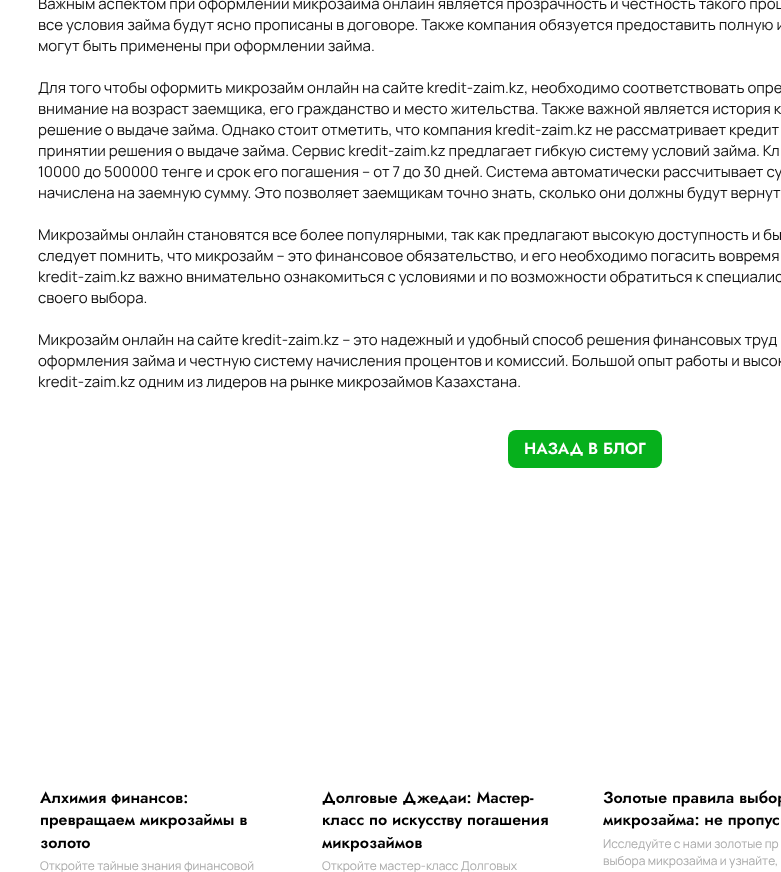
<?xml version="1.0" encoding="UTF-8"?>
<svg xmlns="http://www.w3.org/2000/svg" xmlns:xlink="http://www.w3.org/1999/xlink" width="781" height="872">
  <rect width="100%" height="100%" fill="#ffffff" />
  <rect x="508" y="430" width="154" height="38" rx="8" fill="#06b01c" />
  <text x="38" y="9" style="font-family: Manrope; font-size: 15px; fill: #111111">Важным аспектом при оформлении микрозайма онлайн является прозрачность и честность такого проц</text>
  <text x="38" y="30" style="font-family: Manrope; font-size: 15px; fill: #111111">все условия займа будут ясно прописаны в договоре. Также компания обязуется предоставить полную и</text>
  <text x="38" y="51" style="font-family: Manrope; font-size: 15px; fill: #111111">могут быть применены при оформлении займа.</text>
  <text x="38" y="93" style="font-family: Manrope; font-size: 15px; fill: #111111">Для того чтобы оформить микрозайм онлайн на сайте kredit-zaim.kz, необходимо соответствовать опре</text>
  <text x="38" y="114" style="font-family: Manrope; font-size: 15px; fill: #111111">внимание на возраст заемщика, его гражданство и место жительства. Также важной является история к</text>
  <text x="38" y="135" style="font-family: Manrope; font-size: 15px; fill: #111111">решение о выдаче займа. Однако стоит отметить, что компания kredit-zaim.kz не рассматривает кредит</text>
  <text x="38" y="156" style="font-family: Manrope; font-size: 15px; fill: #111111">принятии решения о выдаче займа. Сервис kredit-zaim.kz предлагает гибкую систему условий займа. Кл</text>
  <text x="38" y="177" style="font-family: Manrope; font-size: 15px; fill: #111111">10000 до 500000 тенге и срок его погашения – от 7 до 30 дней. Система автоматически рассчитывает су</text>
  <text x="38" y="198" style="font-family: Manrope; font-size: 15px; fill: #111111">начислена на заемную сумму. Это позволяет заемщикам точно знать, сколько они должны будут вернут</text>
  <text x="38" y="240" style="font-family: Manrope; font-size: 15px; fill: #111111">Микрозаймы онлайн становятся все более популярными, так как предлагают высокую доступность и бы</text>
  <text x="38" y="261" style="font-family: Manrope; font-size: 15px; fill: #111111">следует помнить, что микрозайм – это финансовое обязательство, и его необходимо погасить вовремя</text>
  <text x="38" y="282" style="font-family: Manrope; font-size: 15px; fill: #111111">kredit-zaim.kz важно внимательно ознакомиться с условиями и по возможности обратиться к специалис</text>
  <text x="38" y="303" style="font-family: Manrope; font-size: 15px; fill: #111111">своего выбора.</text>
  <text x="38" y="345" style="font-family: Manrope; font-size: 15px; fill: #111111">Микрозайм онлайн на сайте kredit-zaim.kz – это надежный и удобный способ решения финансовых труд</text>
  <text x="38" y="366" style="font-family: Manrope; font-size: 15px; fill: #111111">оформления займа и честную систему начисления процентов и комиссий. Большой опыт работы и высок</text>
  <text x="38" y="387" style="font-family: Manrope; font-size: 15px; fill: #111111">kredit-zaim.kz одним из лидеров на рынке микрозаймов Казахстана.</text>
  <text x="524" y="454" style="font-family: Jost; font-size: 16px; font-weight: 600; fill: #ffffff">НАЗАД В БЛОГ</text>
  <text x="40" y="803" style="font-family: Jost; font-size: 16px; font-weight: 600; fill: #000000">Алхимия финансов:</text>
  <text x="40" y="825" style="font-family: Jost; font-size: 16px; font-weight: 600; fill: #000000">превращаем микрозаймы в</text>
  <text x="40" y="848" style="font-family: Jost; font-size: 16px; font-weight: 600; fill: #000000">золото</text>
  <text x="40" y="870" style="font-family: Manrope; font-size: 12px; fill: #aaaaaa">Откройте тайные знания финансовой</text>
  <text x="322" y="803" style="font-family: Jost; font-size: 16px; font-weight: 600; fill: #000000">Долговые Джедаи: Мастер-</text>
  <text x="322" y="825" style="font-family: Jost; font-size: 16px; font-weight: 600; fill: #000000">класс по искусству погашения</text>
  <text x="322" y="848" style="font-family: Jost; font-size: 16px; font-weight: 600; fill: #000000">микрозаймов</text>
  <text x="322" y="870" style="font-family: Manrope; font-size: 12px; fill: #aaaaaa">Откройте мастер-класс Долговых</text>
  <text x="603" y="803" style="font-family: Jost; font-size: 16px; font-weight: 600; fill: #000000">Золотые правила выбор</text>
  <text x="603" y="825" style="font-family: Jost; font-size: 16px; font-weight: 600; fill: #000000">микрозайма: не пропус</text>
  <text x="603" y="848" style="font-family: Manrope; font-size: 12px; fill: #aaaaaa">Исследуйте с нами золотые пр</text>
  <text x="603" y="865" style="font-family: Manrope; font-size: 12px; fill: #aaaaaa">выбора микрозайма и узнайте,</text>
</svg>
